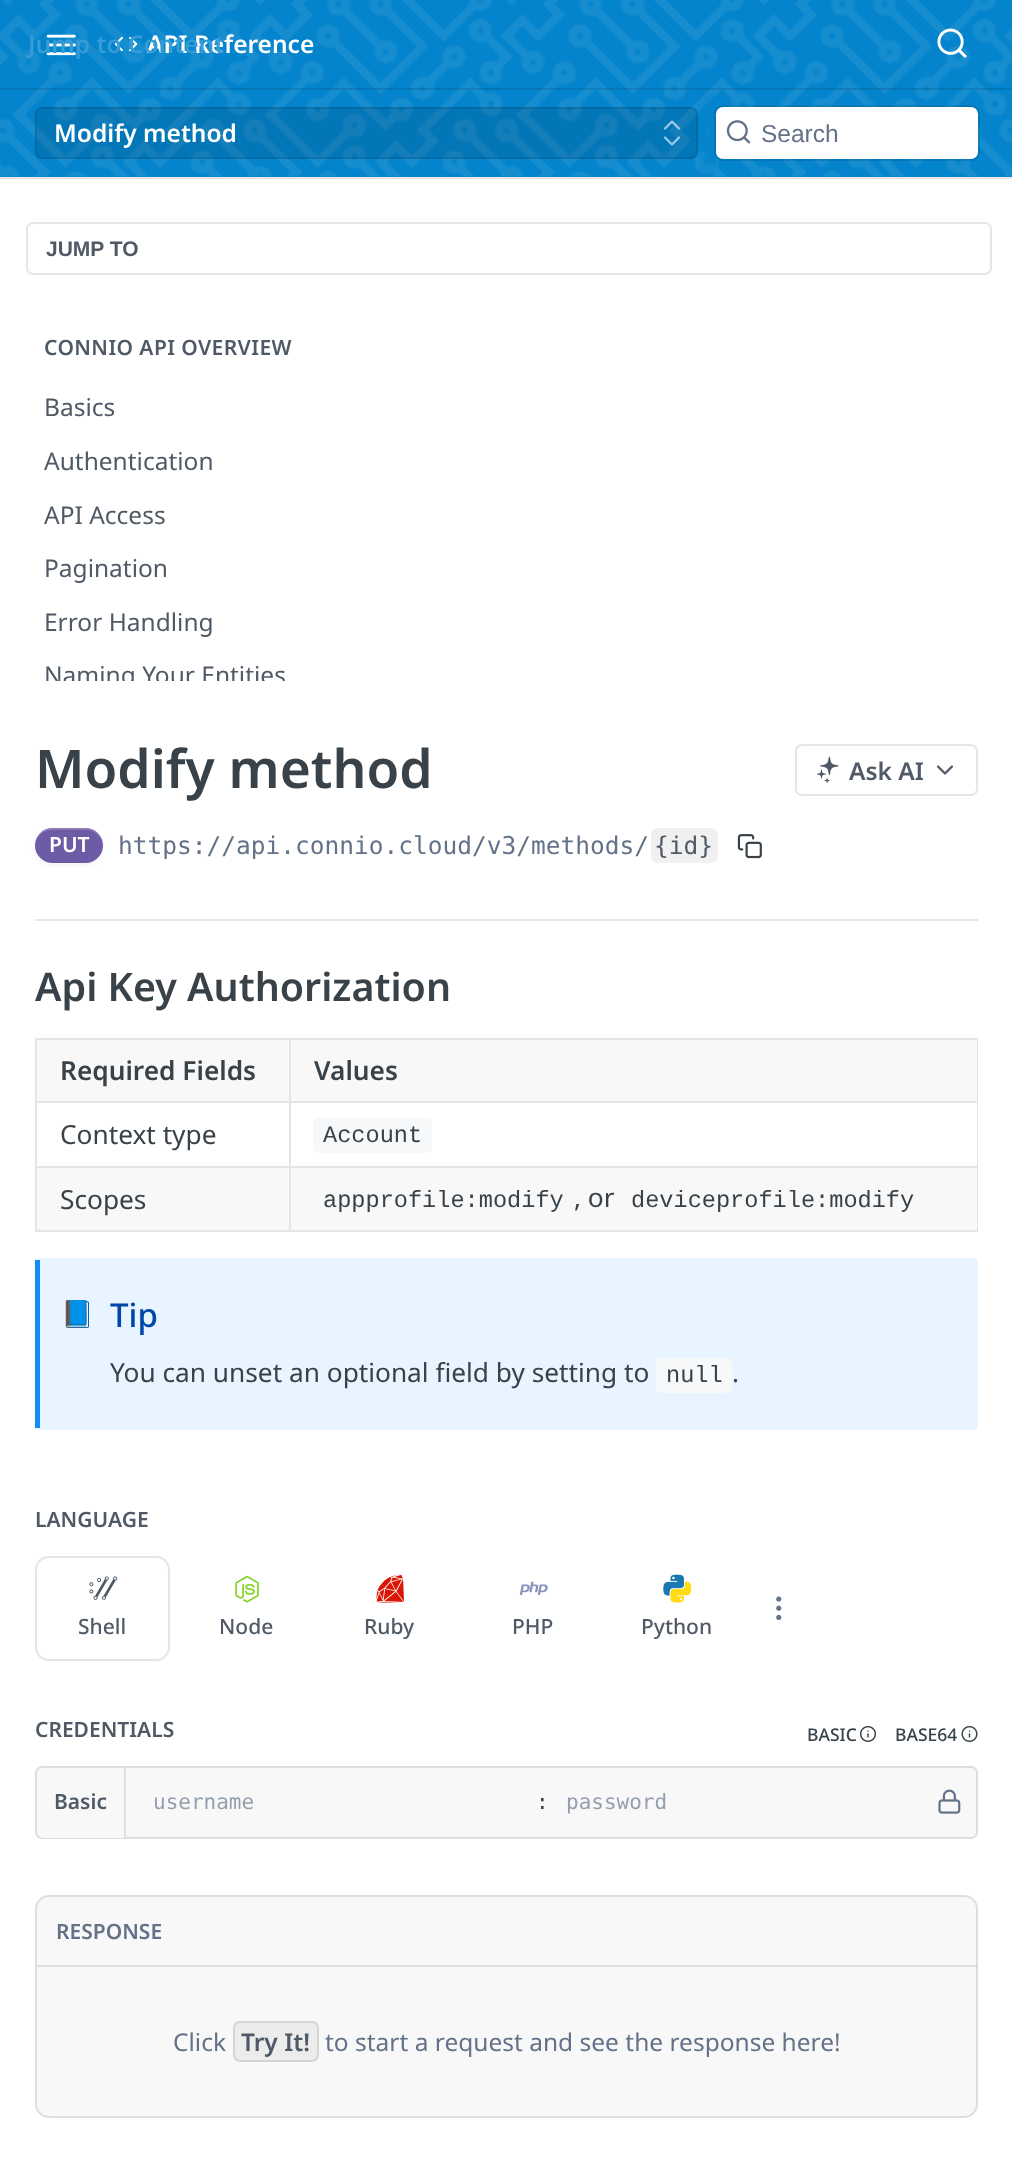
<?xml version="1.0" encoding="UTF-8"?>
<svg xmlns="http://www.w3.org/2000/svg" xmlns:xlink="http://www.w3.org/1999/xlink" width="1012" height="2177">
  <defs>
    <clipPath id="clip1"><rect x="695" y="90" width="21" height="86" /></clipPath>
    <clipPath id="clip2"><rect y="177" width="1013" height="504" /></clipPath>
  </defs>
  <rect width="100%" height="100%" fill="#ffffff" />
  <rect y="177" width="1012" height="2" fill="#e6e6e6" />
  <rect width="1012" height="177" fill="#0484cc" />
  <image x="0" y="0" width="1012" height="177" xlink:href="image1.png" />
  <rect y="88" width="1012" height="2" fill="#000000" fill-opacity="0.1" />
  <image x="46" y="34" width="30" height="22" xlink:href="image2.png" />
  <image x="114" y="36" width="24" height="16" xlink:href="image3.png" />
  <image x="937" y="28" width="30" height="30" xlink:href="image4.png" />
  <rect x="35" y="107" width="663" height="52" rx="7" fill="#000000" fill-opacity="0.1" />
  <rect x="36" y="108" width="661" height="50" rx="6" fill="none" stroke="#000000" stroke-opacity="0.1" stroke-width="2" />
  <path d="M 665 137.5 l 7 7 l 7 -7 m 0 -9 l -7 -7 l -7 7" fill="none" stroke="#ffffff" stroke-opacity="0.6" stroke-width="2.3" stroke-linecap="round" stroke-linejoin="round" />
  <g clip-path="url(#clip1)">
    <rect x="705" y="100" width="277" height="66" fill="#0484cc" filter="blur(5px)" />
  </g>
  <rect x="715" y="106" width="264" height="54" rx="8" fill="none" stroke="#000000" stroke-opacity="0.1" stroke-width="2" />
  <rect x="716" y="107" width="262" height="52" rx="7" fill="#ffffff" />
  <image x="726" y="120" width="25" height="24" xlink:href="image5.png" />
  <rect x="27" y="223" width="964" height="51" rx="6" fill="none" stroke="#e6e6e6" stroke-width="2" />
  <rect x="35" y="919" width="943" height="2" fill="#e6e6e6" />
  <rect x="796" y="745" width="181" height="50" rx="6" fill="none" stroke="#e6e6e6" stroke-width="2" />
  <image x="817" y="756" width="22" height="28" xlink:href="image6.png" />
  <path d="M 938 766.5 l 7 7 l 7 -7" fill="none" stroke="#4f5a66" stroke-width="2.3" stroke-linecap="round" stroke-linejoin="round" />
  <rect x="35" y="830" width="68" height="35" rx="17.5" fill="#000000" fill-opacity="0.05" filter="blur(2px)" />
  <rect x="35" y="828" width="68" height="35" rx="17.5" fill="#6d5ba6" />
  <path d="M 52 830 h 34 c 9 0 17 7 17 16 c 0 -3 -1 -7 -3 -10 c -7 -11 -20 -8 -31 -8 c -11 0 -24 -3 -31 8 c -2 3 -3 7 -3 10 c 0 -9 8 -16 17 -16 z" fill="#ffffff" fill-opacity="0.2" />
  <rect x="651" y="828" width="67" height="35" rx="7" fill="#f0f0f0" />
  <image x="737" y="834" width="25" height="25" xlink:href="image7.png" />
  <rect x="35" y="1038" width="943" height="2" fill="#e5e5e5" />
  <rect x="977" y="1038" width="1" height="194" fill="#e5e5e5" />
  <rect x="35" y="1230" width="943" height="2" fill="#e5e5e5" />
  <rect x="35" y="1038" width="2" height="194" fill="#e5e5e5" />
  <rect x="37" y="1040" width="940" height="61" fill="#f8f8f8" />
  <rect x="289" y="1101" width="689" height="2" fill="#e5e5e5" />
  <rect x="35" y="1166" width="943" height="2" fill="#e5e5e5" />
  <rect x="37" y="1168" width="940" height="62" fill="#f8f8f8" />
  <rect x="289" y="1166" width="2" height="66" fill="#e5e5e5" />
  <rect x="289" y="1101" width="2" height="66" fill="#e5e5e5" />
  <rect x="35" y="1101" width="256" height="2" fill="#e5e5e5" />
  <rect x="289" y="1038" width="2" height="65" fill="#e5e5e5" />
  <rect x="313" y="1118" width="119" height="35" rx="5" fill="#f6f8fa" />
  <rect x="35" y="1258" width="943" height="172" rx="4" fill="#e8f4ff" />
  <rect x="35" y="1260" width="5" height="168" fill="#118cfd" />
  <rect x="656" y="1358" width="76" height="35" rx="5" fill="#f6f8fa" />
  <image x="776" y="1596" width="6" height="24" xlink:href="image8.png" />
  <rect x="36" y="1557" width="133" height="103" rx="13" fill="none" stroke="#e6e6e6" stroke-width="2" />
  <image x="89" y="1576" width="29" height="24" xlink:href="image9.png" />
  <image x="235" y="1575" width="24" height="28" xlink:href="image10.png" />
  <image x="376" y="1574" width="29" height="29" xlink:href="image11.png" />
  <image x="519" y="1581" width="29" height="14" xlink:href="image12.png" />
  <image x="663" y="1574" width="21" height="22" xlink:href="image13.png" />
  <image x="670" y="1581" width="22" height="22" xlink:href="image14.png" />
  <image x="860" y="1726" width="16" height="16" xlink:href="image15.png" />
  <image x="961" y="1725" width="17" height="17" xlink:href="image16.png" />
  <rect x="35" y="1766" width="943" height="73" rx="7" fill="#f8f8f8" />
  <rect x="36" y="1767" width="941" height="71" rx="6" fill="none" stroke="#000000" stroke-opacity="0.1" stroke-width="2" />
  <path d="M 44 1768 h 82 v 70 h -82 c -4 0 -7 -3 -7 -7 v -56 c 0 -4 3 -7 7 -7 z" fill="#f8f8f8" />
  <rect x="124" y="1768" width="2" height="70" fill="#dfdfdf" />
  <image x="938" y="1789" width="23" height="25" xlink:href="image17.png" />
  <rect x="35" y="1895" width="943" height="223" rx="14" fill="#f8f8f8" />
  <rect x="36" y="1896" width="941" height="221" rx="13" fill="none" stroke="#000000" stroke-opacity="0.1" stroke-width="2" />
  <rect x="37" y="1965" width="940" height="2" fill="#000000" fill-opacity="0.1" />
  <rect x="233" y="2021" width="86" height="41" rx="7" fill="#ececec" />
  <rect x="234" y="2022" width="84" height="39" rx="6" fill="none" stroke="#000000" stroke-opacity="0.1" stroke-width="2" />
  <text x="147" y="53" style="font-family: Noto Sans; font-size: 24.5px; font-weight: 600; fill: #ffffff">API Reference</text>
  <text x="28" y="53" style="font-family: Noto Sans; font-size: 24.5px; font-weight: 600; fill: #359cd6">Jump to Content</text>
  <text x="54" y="142" style="font-family: Noto Sans; font-size: 24.5px; font-weight: 600; fill: #ffffff">Modify method</text>
  <text x="761" y="142" style="font-family: Liberation Sans; font-size: 24.5px; fill: #637288">Search</text>
  <text x="46" y="256" style="font-family: Liberation Sans; font-size: 21px; font-weight: bold; fill: #4f5a66">JUMP TO</text>
  <text x="44" y="355" style="font-family: Noto Sans; font-size: 21px; font-weight: 600; letter-spacing: 0.4px; fill: #4f5a66">CONNIO API OVERVIEW</text>
  <text x="44" y="416" style="font-family: Noto Sans; font-size: 24.5px; fill: #4f5a66">Basics</text>
  <text x="44" y="470" style="font-family: Noto Sans; font-size: 24.5px; fill: #4f5a66">Authentication</text>
  <text x="44" y="524" style="font-family: Noto Sans; font-size: 24.5px; fill: #4f5a66">API Access</text>
  <text x="44" y="577" style="font-family: Noto Sans; font-size: 24.5px; fill: #4f5a66">Pagination</text>
  <text x="44" y="631" style="font-family: Noto Sans; font-size: 24.5px; fill: #4f5a66">Error Handling</text>
  <g clip-path="url(#clip2)">
    <text x="44" y="684" style="font-family: Noto Sans; font-size: 24.5px; fill: #4f5a66">Naming Your Entities</text>
  </g>
  <text x="35" y="788" style="font-family: Noto Sans; font-size: 53.25px; font-weight: 600; fill: #384248">Modify method</text>
  <text x="849" y="780" style="font-family: Noto Sans; font-size: 24.5px; font-weight: 600; fill: #4f5a66">Ask AI</text>
  <text x="49" y="852" style="font-family: Noto Sans; font-size: 21px; font-weight: 600; fill: #ffffff">PUT</text>
  <text x="118" y="854" style="font-family: DejaVu Sans Mono; font-size: 24.5px; fill: #637288">https://api.connio.cloud/v3/methods/</text>
  <text x="654" y="854" style="font-family: DejaVu Sans Mono; font-size: 24.5px; fill: #4f5a66">{id}</text>
  <text x="35" y="1001" style="font-family: Noto Sans; font-size: 39.4px; font-weight: 600; fill: #384248">Api Key Authorization</text>
  <text x="60" y="1080" style="font-family: Noto Sans; font-size: 26.25px; font-weight: 600; fill: #384248">Required Fields</text>
  <text x="314" y="1080" style="font-family: Noto Sans; font-size: 26.25px; font-weight: 600; fill: #384248">Values</text>
  <text x="60" y="1144" style="font-family: Noto Sans; font-size: 26.25px; fill: #384248">Context type</text>
  <text x="323" y="1142" style="font-family: Liberation Mono; font-size: 23.6px; fill: #384248">Account</text>
  <text x="60" y="1209" style="font-family: Noto Sans; font-size: 26.25px; fill: #384248">Scopes</text>
  <text x="323" y="1207" style="font-family: Liberation Mono; font-size: 23.6px; fill: #384248">appprofile:modify</text>
  <text x="574" y="1207" style="font-family: Noto Sans; font-size: 26.25px; fill: #384248">, or</text>
  <text x="631" y="1207" style="font-family: Liberation Mono; font-size: 23.6px; fill: #384248">deviceprofile:modify</text>
  <text x="61" y="1323" style="font-family: Noto Color Emoji; font-size: 26.25px; fill: #384248">📘</text>
  <text x="110" y="1327" style="font-family: Noto Sans; font-size: 33px; font-weight: 500; fill: #0047aa">Tip</text>
  <text x="110" y="1382" style="font-family: Noto Sans; font-size: 26.25px; fill: #384248">You can unset an optional field by setting to</text>
  <text x="666" y="1382" style="font-family: Liberation Mono; font-size: 23.6px; fill: #384248">null</text>
  <text x="732" y="1382" style="font-family: Noto Sans; font-size: 26.25px; fill: #384248">.</text>
  <text x="35" y="1527" style="font-family: Noto Sans; font-size: 21px; font-weight: 600; fill: #4f5a66">LANGUAGE</text>
  <text x="78" y="1634" style="font-family: Noto Sans; font-size: 21px; font-weight: 500; fill: #4f5a66">Shell</text>
  <text x="219" y="1634" style="font-family: Noto Sans; font-size: 21px; font-weight: 500; fill: #4f5a66">Node</text>
  <text x="364" y="1634" style="font-family: Noto Sans; font-size: 21px; font-weight: 500; fill: #4f5a66">Ruby</text>
  <text x="512" y="1634" style="font-family: Noto Sans; font-size: 21px; font-weight: 500; fill: #4f5a66">PHP</text>
  <text x="641" y="1634" style="font-family: Noto Sans; font-size: 21px; font-weight: 500; fill: #4f5a66">Python</text>
  <text x="35" y="1737" style="font-family: Noto Sans; font-size: 21px; font-weight: 600; fill: #4f5a66">CREDENTIALS</text>
  <text x="807" y="1741" style="font-family: Noto Sans; font-size: 17.5px; font-weight: 500; fill: #384248">BASIC</text>
  <text x="895" y="1741" style="font-family: Noto Sans; font-size: 17.5px; font-weight: 500; fill: #384248">BASE64</text>
  <text x="54" y="1809" style="font-family: Noto Sans; font-size: 21px; font-weight: 600; fill: #4f5a66">Basic</text>
  <text x="153" y="1809" style="font-family: DejaVu Sans Mono; font-size: 21px; fill: #939eae">username</text>
  <text x="536" y="1809" style="font-family: DejaVu Sans Mono; font-size: 21px; fill: #384248">:</text>
  <text x="566" y="1809" style="font-family: DejaVu Sans Mono; font-size: 21px; fill: #939eae">password</text>
  <text x="56" y="1939" style="font-family: Noto Sans; font-size: 21px; font-weight: 600; fill: #637288">RESPONSE</text>
  <text x="173" y="2051" style="font-family: Noto Sans; font-size: 24.5px; fill: #637288">Click</text>
  <text x="241" y="2051" style="font-family: Noto Sans; font-size: 24.5px; font-weight: 600; fill: #4f5a66">Try It!</text>
  <text x="325" y="2051" style="font-family: Noto Sans; font-size: 24.5px; fill: #637288">to start a request and see the response here!</text>
</svg>
